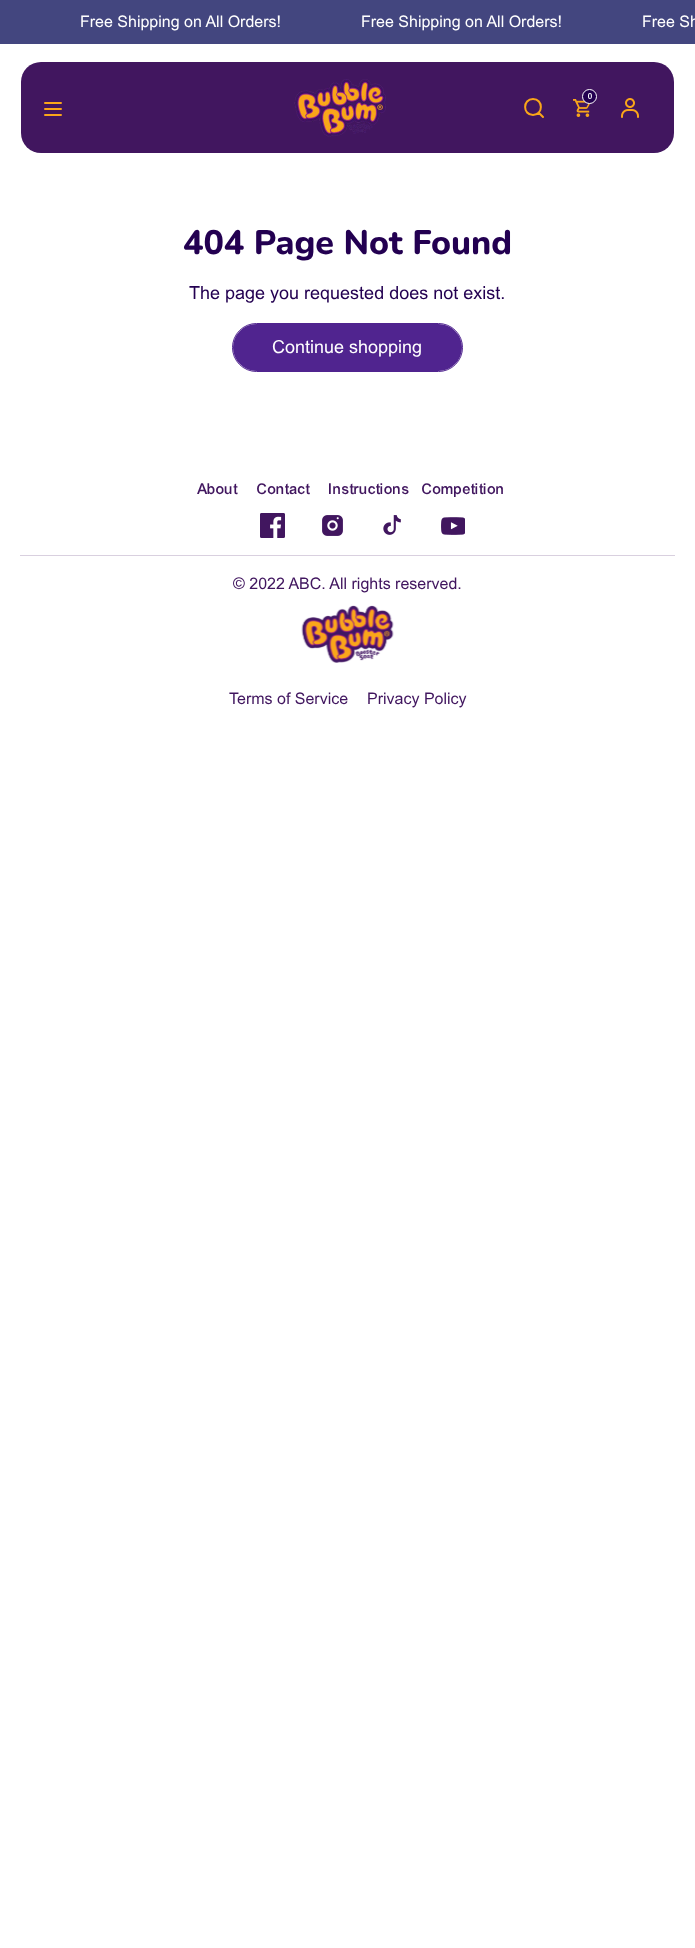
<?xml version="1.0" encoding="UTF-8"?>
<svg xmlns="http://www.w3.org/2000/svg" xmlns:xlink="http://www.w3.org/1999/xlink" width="695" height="1948">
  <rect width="100%" height="100%" fill="#ffffff" />
  <rect width="695" height="44" fill="#43467f" />
  <rect x="21" y="62" width="653" height="91" rx="20" fill="#41165f" />
  <image x="294" y="79" width="92" height="58" xlink:href="image1.png" />
  <image x="573" y="99" width="18" height="18" xlink:href="image2.png" />
  <circle cx="589.5" cy="96.5" r="7" fill="#230051" stroke="#ffffff" />
  <path d="M 533 115 c 10.5 0 10.5 -16 0 -16 c -10.5 0 -10.5 16 0 16 z m 10 2 l -4.5 -4.5" fill="none" stroke="#faa619" stroke-width="2" stroke-linecap="round" stroke-linejoin="round" />
  <image x="621" y="98" width="18" height="20" xlink:href="image3.png" />
  <path d="M 45 109 h 16 m -16 -6 h 16 m -16 12 h 16" fill="none" stroke="#faa619" stroke-width="2" stroke-linecap="round" stroke-linejoin="round" />
  <rect x="232.5" y="323.5" width="230" height="48" rx="24" fill="none" stroke="#50248f" />
  <rect x="233" y="324" width="229" height="47" rx="23.5" fill="#50248f" />
  <rect x="20" y="555" width="655" height="1" fill="#d9d0df" />
  <image x="260" y="513" width="25" height="25" xlink:href="image4.png" />
  <image x="322" y="515" width="21" height="21" xlink:href="image5.png" />
  <image x="383" y="515" width="18" height="20" xlink:href="image6.png" />
  <image x="441" y="517" width="24" height="18" xlink:href="image7.png" />
  <image x="301" y="605" width="93" height="58" xlink:href="image8.png" />
  <text x="80" y="27" style="font-family: Arial; font-size: 16px; fill: #ffffff">Free Shipping on All Orders!</text>
  <text x="361" y="27" style="font-family: Arial; font-size: 16px; fill: #ffffff">Free Shipping on All Orders!</text>
  <text x="642" y="27" style="font-family: Arial; font-size: 16px; fill: #ffffff">Free Sh</text>
  <text x="588" y="99" style="font-family: Arial; font-size: 9px; font-weight: 500; fill: #ffffff">0</text>
  <text x="183" y="254" style="font-family: Nunito; font-size: 34px; font-weight: 800; fill: #230051">404 Page Not Found</text>
  <text x="189" y="299" style="font-family: Arial; font-size: 18px; fill: #230051">The page you requested does not exist.</text>
  <text x="272" y="353" style="font-family: Arial; font-size: 18px; fill: #ffffff">Continue shopping</text>
  <text x="197" y="494" style="font-family: Arial; font-size: 16px; font-weight: 500; fill: #41165f">About</text>
  <text x="257" y="494" style="font-family: Arial; font-size: 16px; font-weight: 500; fill: #41165f">Contact</text>
  <text x="329" y="494" style="font-family: Arial; font-size: 16px; font-weight: 500; fill: #41165f">Instructions</text>
  <text x="422" y="494" style="font-family: Arial; font-size: 16px; font-weight: 500; fill: #41165f">Competition</text>
  <text x="233" y="589" style="font-family: Arial; font-size: 16px; fill: #41165f">© 2022 ABC. All rights reserved.</text>
  <text x="229" y="704" style="font-family: Arial; font-size: 16px; fill: #41165f">Terms of Service</text>
  <text x="367" y="704" style="font-family: Arial; font-size: 16px; fill: #41165f">Privacy Policy</text>
</svg>
